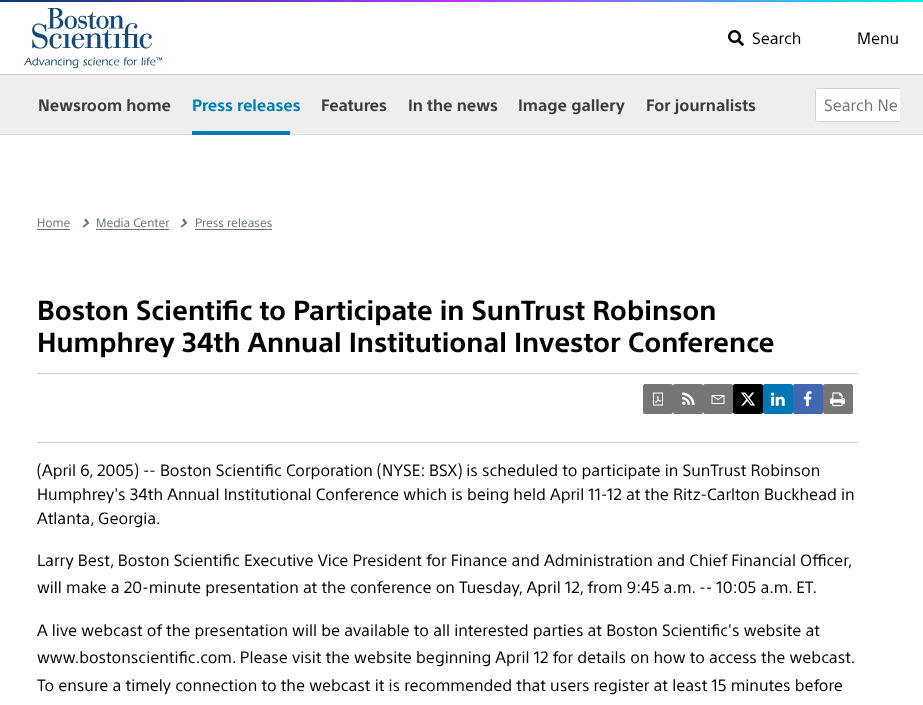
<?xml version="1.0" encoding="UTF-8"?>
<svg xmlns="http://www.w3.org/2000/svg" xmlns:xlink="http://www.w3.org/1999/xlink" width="923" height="705">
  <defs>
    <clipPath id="clip1"><rect x="23" y="75" width="877" height="60" /></clipPath>
  </defs>
  <rect width="100%" height="100%" fill="#ffffff" />
  <image x="0" y="0" width="923" height="2" xlink:href="image1.png" />
  <rect y="74" width="923" height="1" fill="#cccccc" />
  <image x="24" y="8" width="138" height="60" xlink:href="image2.png" />
  <image x="728" y="30" width="16" height="16" xlink:href="image3.png" />
  <rect y="75" width="923" height="59" fill="#eeeeee" />
  <rect y="134" width="923" height="1" fill="#dddddd" />
  <rect x="192" y="131" width="98" height="4" fill="#007db3" />
  <path d="M 817.5 88 h 82.5 v 34 h -82.5 c -1.5 0 -2.5 -1 -2.5 -2.5 v -29 c 0 -1.5 1 -2.5 2.5 -2.5 z" fill="#ffffff" />
  <g clip-path="url(#clip1)">
    <rect x="815.5" y="88.5" width="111" height="33" rx="2" fill="none" stroke="#ced4da" />
  </g>
  <rect x="37" y="229" width="33" height="1" fill="#6a737b" />
  <image x="82" y="218" width="8" height="10" xlink:href="image4.png" />
  <rect x="96" y="229" width="73" height="1" fill="#6a737b" />
  <image x="180" y="218" width="8" height="10" xlink:href="image4.png" />
  <rect x="195" y="229" width="77" height="1" fill="#6a737b" />
  <rect x="37" y="373" width="821" height="1" fill="#cccccc" />
  <rect x="37" y="442" width="821" height="1" fill="#cccccc" />
  <rect x="643" y="384" width="30" height="30" rx="2" fill="#767676" />
  <image x="653" y="392" width="10" height="14" xlink:href="image5.png" />
  <rect x="673" y="384" width="30" height="30" rx="2" fill="#767676" />
  <image x="682" y="392" width="13" height="13" xlink:href="image6.png" />
  <rect x="703" y="384" width="30" height="30" rx="2" fill="#767676" />
  <image x="711" y="395" width="14" height="9" xlink:href="image7.png" />
  <rect x="733" y="384" width="30" height="30" rx="2" fill="#000000" />
  <image x="741" y="392" width="15" height="14" xlink:href="image8.png" />
  <rect x="763" y="384" width="30" height="30" rx="2" fill="#0077b5" />
  <image x="771" y="392" width="14" height="14" xlink:href="image9.png" />
  <rect x="793" y="384" width="30" height="30" rx="2" fill="#4267b2" />
  <image x="803" y="391" width="9" height="16" xlink:href="image10.png" />
  <rect x="823" y="384" width="30" height="30" rx="2" fill="#767676" />
  <image x="830" y="392" width="15" height="15" xlink:href="image11.png" />
  <text x="752" y="44" style="font-family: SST; font-size: 16px; fill: #000000">Search</text>
  <text x="857" y="44" style="font-family: SST; font-size: 16px; fill: #000000">Menu</text>
  <text x="38" y="111" style="font-family: SST; font-size: 16px; font-weight: bold; fill: #3c3c3c">Newsroom home</text>
  <text x="192" y="111" style="font-family: SST; font-size: 16px; font-weight: bold; fill: #007db3">Press releases</text>
  <text x="321" y="111" style="font-family: SST; font-size: 16px; font-weight: bold; fill: #3c3c3c">Features</text>
  <text x="408" y="111" style="font-family: SST; font-size: 16px; font-weight: bold; fill: #3c3c3c">In the news</text>
  <text x="518" y="111" style="font-family: SST; font-size: 16px; font-weight: bold; fill: #3c3c3c">Image gallery</text>
  <text x="646" y="111" style="font-family: SST; font-size: 16px; font-weight: bold; fill: #3c3c3c">For journalists</text>
  <text x="824" y="111" style="font-family: SST; font-size: 16px; fill: #757575">Search Ne</text>
  <text x="37" y="227" style="font-family: SST; font-size: 12px; fill: #6a737b">Home</text>
  <text x="96" y="227" style="font-family: SST; font-size: 12px; fill: #6a737b">Media Center</text>
  <text x="195" y="227" style="font-family: SST; font-size: 12px; fill: #6a737b">Press releases</text>
  <text x="37" y="320" style="font-family: SST; font-size: 27.05px; font-weight: bold; fill: #000000">Boston Scientific to Participate in SunTrust Robinson</text>
  <text x="37" y="352" style="font-family: SST; font-size: 27.05px; font-weight: bold; fill: #000000">Humphrey 34th Annual Institutional Investor Conference</text>
  <text x="37" y="476" style="font-family: SST; font-size: 16px; fill: #000000">(April 6, 2005) -- Boston Scientific Corporation (NYSE: BSX) is scheduled to participate in SunTrust Robinson</text>
  <text x="37" y="500" style="font-family: SST; font-size: 16px; fill: #000000">Humphrey's 34th Annual Institutional Conference which is being held April 11-12 at the Ritz-Carlton Buckhead in</text>
  <text x="37" y="524" style="font-family: SST; font-size: 16px; fill: #000000">Atlanta, Georgia.</text>
  <text x="37" y="566" style="font-family: SST; font-size: 16px; fill: #000000">Larry Best, Boston Scientific Executive Vice President for Finance and Administration and Chief Financial Officer,</text>
  <text x="37" y="593" style="font-family: SST; font-size: 16px; fill: #000000">will make a 20-minute presentation at the conference on Tuesday, April 12, from 9:45 a.m. -- 10:05 a.m. ET.</text>
  <text x="37" y="636" style="font-family: SST; font-size: 16px; fill: #000000">A live webcast of the presentation will be available to all interested parties at Boston Scientific's website at</text>
  <text x="37" y="663" style="font-family: SST; font-size: 16px; fill: #000000">www.bostonscientific.com. Please visit the website beginning April 12 for details on how to access the webcast.</text>
  <text x="37" y="691" style="font-family: SST; font-size: 16px; fill: #000000">To ensure a timely connection to the webcast it is recommended that users register at least 15 minutes before</text>
</svg>
